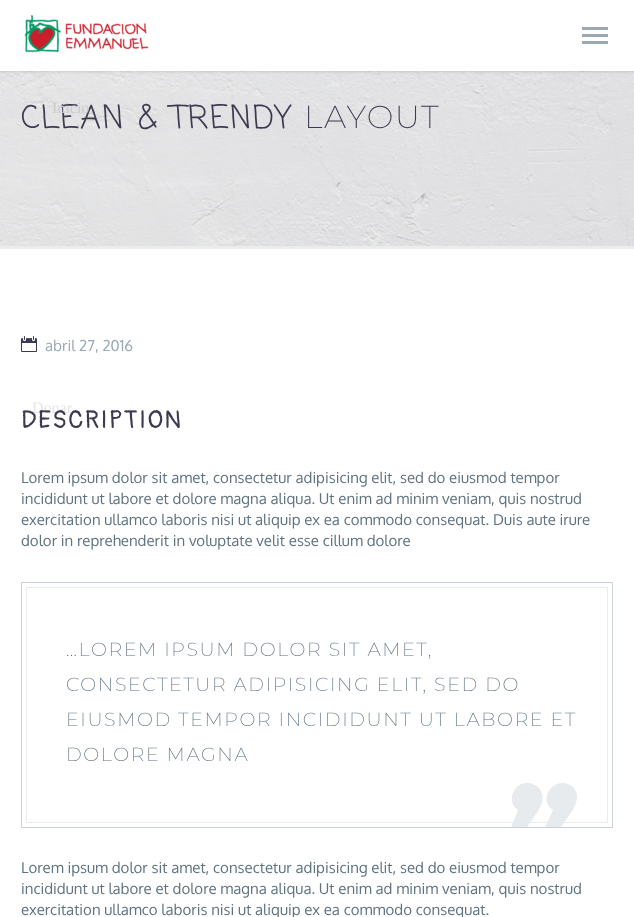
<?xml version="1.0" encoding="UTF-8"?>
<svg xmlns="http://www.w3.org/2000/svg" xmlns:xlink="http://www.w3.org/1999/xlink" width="634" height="917">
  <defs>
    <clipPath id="clip1"><rect x="22" y="583" width="590" height="244" /></clipPath>
  </defs>
  <rect width="100%" height="100%" fill="#ffffff" />
  <image x="24" y="15" width="125" height="38" xlink:href="image1.png" />
  <rect x="582" y="27" width="26" height="3" fill="#99a9b5" />
  <rect x="582" y="34" width="26" height="3" fill="#99a9b5" />
  <rect x="582" y="41" width="26" height="3" fill="#99a9b5" />
  <image x="0" y="71" width="634" height="175" xlink:href="image2.png" />
  <rect y="246" width="634" height="3" fill="#eaedec" />
  <image x="21" y="336" width="16" height="16" xlink:href="image3.png" />
  <rect x="21.5" y="582.5" width="591" height="245" fill="none" stroke="#c9d2d9" />
  <rect x="26.5" y="587.5" width="581" height="235" fill="none" stroke="#e9edf0" />
  <g clip-path="url(#clip1)">
    <path d="M 573 787 c -3 -2 -7 -4 -10 -4 c -15 0 -23 19 -10 27 l -9 20 h 15 l 9 -13 c 6 -8 14 -21 5 -30 z m -46 -4 c -14 0 -21 19 -9 27 l -8 20 h 15 l 9 -13 c 6 -8 13 -19 5 -29 c -3 -3 -7 -5 -12 -5 z" fill="#e7ebee" />
  </g>
  <text x="32" y="413" style="font-family: Liberation Serif; font-size: 16px; fill: #e6e6e9">Donar</text>
  <text x="21" y="128" style="font-family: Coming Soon; font-size: 31.75px; letter-spacing: 1.6px; fill: #3c3950">CLEAN &amp; TRENDY</text>
  <text x="52" y="113" style="font-family: Liberation Serif; font-size: 16px; fill: #cbcbcf">Inicio</text>
  <text x="304" y="128" style="font-family: Montserrat; font-size: 31.75px; font-weight: 200; letter-spacing: 1.6px; fill: #3c3950">LAYOUT</text>
  <text x="45" y="351" style="font-family: Oxygen; font-size: 15px; fill: #99a9b5">abril 27, 2016</text>
  <text x="21" y="428" style="font-family: Pangolin; font-size: 25px; letter-spacing: 1.25px; fill: #3c3950">DESCRIPTION</text>
  <text x="21" y="483" style="font-family: Oxygen; font-size: 15px; fill: #5f727f">Lorem ipsum dolor sit amet, consectetur adipisicing elit, sed do eiusmod tempor</text>
  <text x="21" y="504" style="font-family: Oxygen; font-size: 15px; fill: #5f727f">incididunt ut labore et dolore magna aliqua. Ut enim ad minim veniam, quis nostrud</text>
  <text x="21" y="525" style="font-family: Oxygen; font-size: 15px; fill: #5f727f">exercitation ullamco laboris nisi ut aliquip ex ea commodo consequat. Duis aute irure</text>
  <text x="21" y="546" style="font-family: Oxygen; font-size: 15px; fill: #5f727f">dolor in reprehenderit in voluptate velit esse cillum dolore</text>
  <text x="66" y="656" style="font-family: Montserrat; font-size: 19px; font-weight: 200; letter-spacing: 1.6px; fill: #5f727f">…LOREM IPSUM DOLOR SIT AMET,</text>
  <text x="66" y="691" style="font-family: Montserrat; font-size: 19px; font-weight: 200; letter-spacing: 1.6px; fill: #5f727f">CONSECTETUR ADIPISICING ELIT, SED DO</text>
  <text x="66" y="726" style="font-family: Montserrat; font-size: 19px; font-weight: 200; letter-spacing: 1.6px; fill: #5f727f">EIUSMOD TEMPOR INCIDIDUNT UT LABORE ET</text>
  <text x="66" y="761" style="font-family: Montserrat; font-size: 19px; font-weight: 200; letter-spacing: 1.6px; fill: #5f727f">DOLORE MAGNA</text>
  <text x="21" y="873" style="font-family: Oxygen; font-size: 15px; fill: #5f727f">Lorem ipsum dolor sit amet, consectetur adipisicing elit, sed do eiusmod tempor</text>
  <text x="21" y="894" style="font-family: Oxygen; font-size: 15px; fill: #5f727f">incididunt ut labore et dolore magna aliqua. Ut enim ad minim veniam, quis nostrud</text>
  <text x="21" y="915" style="font-family: Oxygen; font-size: 15px; fill: #5f727f">exercitation ullamco laboris nisi ut aliquip ex ea commodo consequat.</text>
</svg>
